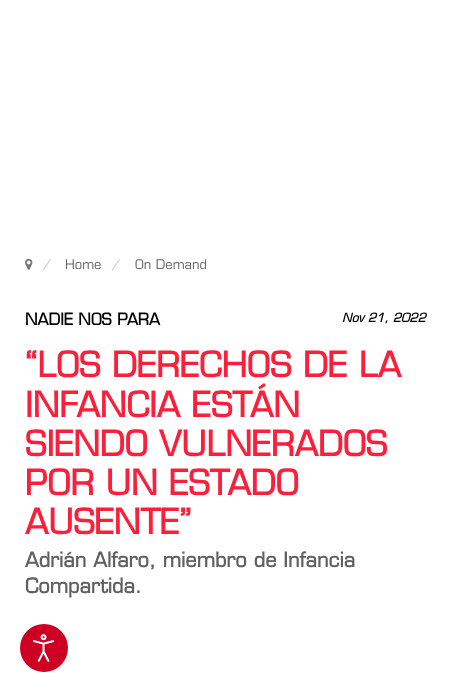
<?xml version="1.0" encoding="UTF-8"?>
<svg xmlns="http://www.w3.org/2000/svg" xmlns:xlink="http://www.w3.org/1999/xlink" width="451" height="692">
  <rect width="100%" height="100%" fill="#ffffff" />
  <image x="25" y="258" width="8" height="12" xlink:href="image1.png" />
  <circle cx="44" cy="648" r="24" fill="#cd0023" />
  <image x="33" y="634" width="21" height="28" xlink:href="image2.png" />
  <text x="42" y="269" style="font-family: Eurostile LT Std; font-size: 13px; fill: #cccccc">/</text>
  <text x="65" y="269" style="font-family: Eurostile LT Std; font-size: 13px; fill: #666666">Home</text>
  <text x="111" y="269" style="font-family: Eurostile LT Std; font-size: 13px; fill: #cccccc">/</text>
  <text x="135" y="269" style="font-family: Eurostile LT Std; font-size: 13px; fill: #666666">On Demand</text>
  <text x="25" y="325" style="font-family: Eurostile LT Std; font-size: 16px; font-weight: bold; fill: #000000">NADIE NOS PARA</text>
  <text x="25" y="377" style="font-family: Eurostile LT Std; font-size: 34px; font-weight: bold; fill: #fa203b">“LOS DERECHOS DE LA</text>
  <text x="25" y="417" style="font-family: Eurostile LT Std; font-size: 34px; font-weight: bold; fill: #fa203b">INFANCIA ESTÁN</text>
  <text x="25" y="456" style="font-family: Eurostile LT Std; font-size: 34px; font-weight: bold; fill: #fa203b">SIENDO VULNERADOS</text>
  <text x="25" y="495" style="font-family: Eurostile LT Std; font-size: 34px; font-weight: bold; fill: #fa203b">POR UN ESTADO</text>
  <text x="25" y="534" style="font-family: Eurostile LT Std; font-size: 34px; font-weight: bold; fill: #fa203b">AUSENTE”</text>
  <text x="342" y="322" style="font-family: Eurostile LT Std; font-size: 12px; font-weight: bold; font-style: italic; fill: #000000">Nov 21, 2022</text>
  <text x="25" y="567" style="font-family: Eurostile LT Std; font-size: 20px; font-weight: bold; fill: #606060">Adrián Alfaro, miembro de Infancia</text>
  <text x="25" y="593" style="font-family: Eurostile LT Std; font-size: 20px; font-weight: bold; fill: #606060">Compartida.</text>
</svg>
